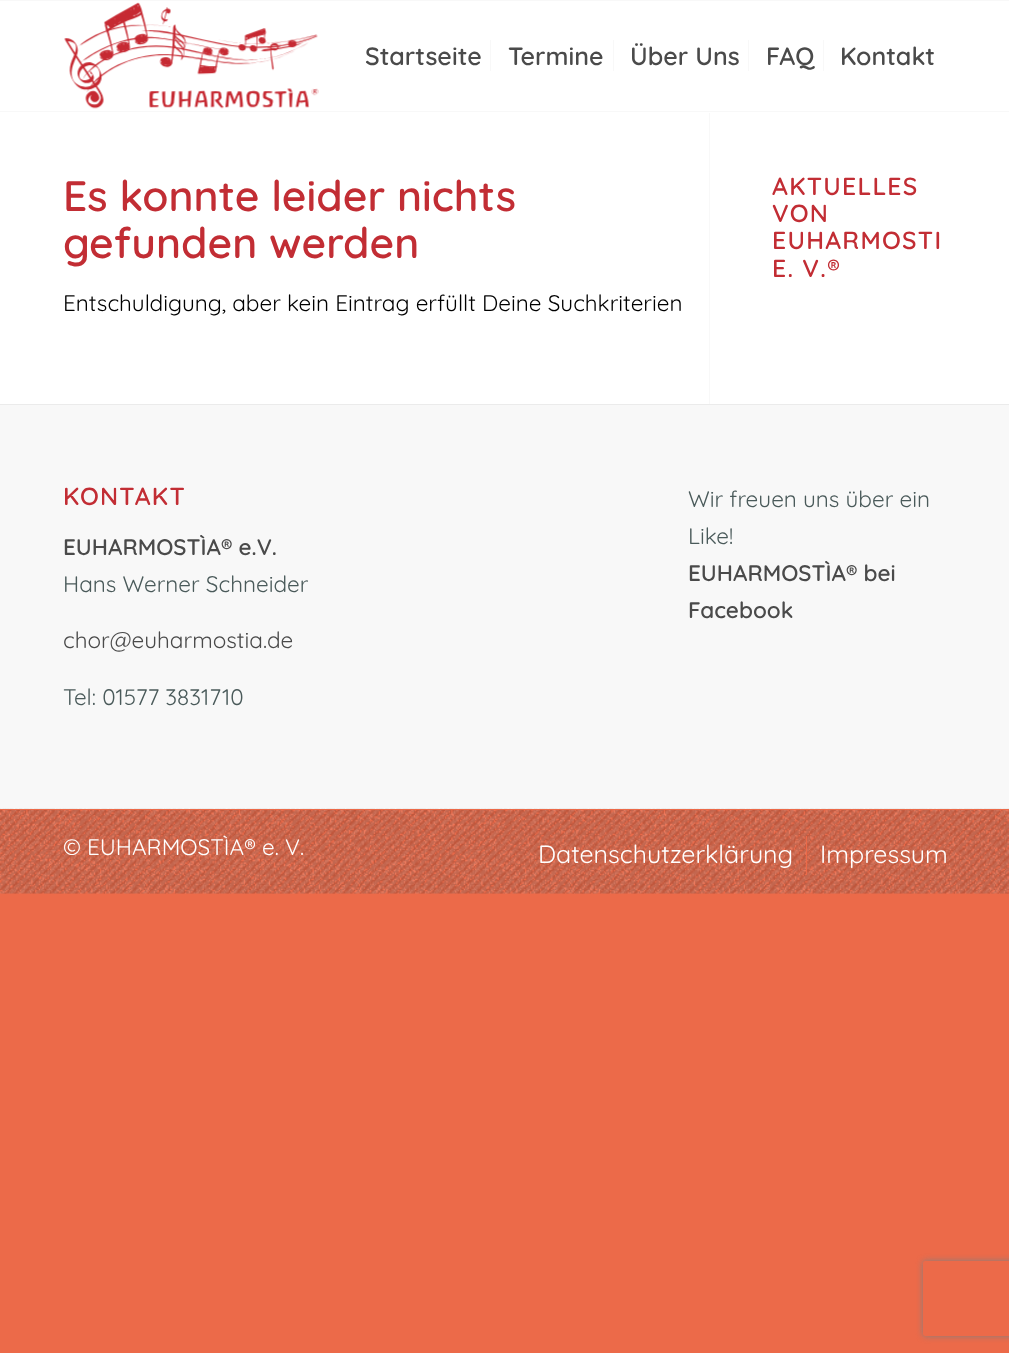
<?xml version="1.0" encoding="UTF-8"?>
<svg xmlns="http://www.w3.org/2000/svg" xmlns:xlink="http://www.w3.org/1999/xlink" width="1009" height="1353">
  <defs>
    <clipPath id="clip1"><path d="M 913 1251 h 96 v 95 h -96 z m 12.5 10 h 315 c 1.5 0 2.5 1 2.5 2.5 v 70 c 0 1.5 -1 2.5 -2.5 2.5 h -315 c -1.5 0 -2.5 -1 -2.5 -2.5 v -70 c 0 -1.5 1 -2.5 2.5 -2.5 z" clip-rule="evenodd" /></clipPath>
  </defs>
  <rect width="100%" height="100%" fill="#ec6a49" />
  <rect y="113" width="1009" height="291" fill="#ffffff" />
  <rect x="709" y="110" width="1" height="294" fill="#f8f8f8" />
  <rect y="1" width="1009" height="112" fill="#ffffff" />
  <rect width="1009" height="1" fill="#f8f8f8" />
  <rect y="111" width="1009" height="1" fill="#f8f8f8" />
  <image x="64" y="2" width="255" height="107" xlink:href="image1.png" />
  <rect x="490" y="40" width="1" height="31" fill="#f8f8f8" />
  <rect x="613" y="40" width="1" height="31" fill="#f8f8f8" />
  <rect x="748" y="40" width="1" height="31" fill="#f8f8f8" />
  <rect x="823" y="40" width="1" height="31" fill="#f8f8f8" />
  <rect y="405" width="1009" height="404" fill="#f8f8f8" />
  <rect y="404" width="1009" height="1" fill="#ebebeb" />
  <image x="0" y="808" width="1009" height="86" xlink:href="image2.png" />
  <rect y="809" width="1009" height="1" fill="#ec6a49" />
  <rect x="806" y="836" width="1" height="39" fill="#ec6a49" />
  <g clip-path="url(#clip1)">
    <rect x="923" y="1261" width="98" height="75" rx="2.5" fill="#808080" filter="blur(3px)" />
  </g>
  <text x="365" y="65" style="font-family: Quicksand; font-size: 25px; font-weight: 600; fill: #4a4a4a">Startseite</text>
  <text x="508" y="65" style="font-family: Quicksand; font-size: 25px; font-weight: 600; fill: #4a4a4a">Termine</text>
  <text x="630" y="65" style="font-family: Quicksand; font-size: 25px; font-weight: 600; fill: #4a4a4a">Über Uns</text>
  <text x="766" y="65" style="font-family: Quicksand; font-size: 25px; font-weight: 600; fill: #4a4a4a">FAQ</text>
  <text x="840" y="65" style="font-family: Quicksand; font-size: 25px; font-weight: 600; fill: #4a4a4a">Kontakt</text>
  <text x="63" y="211" style="font-family: Quicksand; font-size: 42.5px; font-weight: 600; fill: #c22d34">Es konnte leider nichts</text>
  <text x="63" y="258" style="font-family: Quicksand; font-size: 42.5px; font-weight: 600; fill: #c22d34">gefunden werden</text>
  <text x="63" y="311" style="font-family: Quicksand; font-size: 22.5px; fill: #000000">Entschuldigung, aber kein Eintrag erfüllt Deine Suchkriterien</text>
  <text x="772" y="195" style="font-family: Quicksand; font-size: 24.75px; font-weight: 600; letter-spacing: 1.25px; fill: #c22d34">AKTUELLES</text>
  <text x="772" y="222" style="font-family: Quicksand; font-size: 24.75px; font-weight: 600; letter-spacing: 1.25px; fill: #c22d34">VON</text>
  <text x="772" y="249" style="font-family: Quicksand; font-size: 24.75px; font-weight: 600; letter-spacing: 1.25px; fill: #c22d34">EUHARMOSTI</text>
  <text x="772" y="277" style="font-family: Quicksand; font-size: 24.75px; font-weight: 600; letter-spacing: 1.25px; fill: #c22d34">E. V.®</text>
  <text x="63" y="505" style="font-family: Quicksand; font-size: 24.75px; font-weight: 600; letter-spacing: 1.25px; fill: #c22d34">KONTAKT</text>
  <text x="63" y="555" style="font-family: Quicksand; font-size: 22.5px; font-weight: 600; fill: #4a4a4a">EUHARMOSTÌA® e.V.</text>
  <text x="63" y="592" style="font-family: Quicksand; font-size: 22.5px; fill: #4a5a5a">Hans Werner Schneider</text>
  <text x="63" y="648" style="font-family: Quicksand; font-size: 22.5px; fill: #4a4a4a">chor@euharmostia.de</text>
  <text x="63" y="705" style="font-family: Quicksand; font-size: 22.5px; fill: #4a5a5a">Tel: 01577 3831710</text>
  <text x="688" y="507" style="font-family: Quicksand; font-size: 22.5px; fill: #4a5a5a">Wir freuen uns über ein</text>
  <text x="688" y="544" style="font-family: Quicksand; font-size: 22.5px; fill: #4a5a5a">Like!</text>
  <text x="688" y="581" style="font-family: Quicksand; font-size: 22.5px; font-weight: 600; fill: #4a4a4a">EUHARMOSTÌA® bei</text>
  <text x="688" y="618" style="font-family: Quicksand; font-size: 22.5px; font-weight: 600; fill: #4a4a4a">Facebook</text>
  <text x="63" y="855" style="font-family: Quicksand; font-size: 22.5px; fill: #ffffff">© EUHARMOSTÌA® e. V.</text>
  <text x="538" y="863" style="font-family: Quicksand; font-size: 25px; fill: #ffffff">Datenschutzerklärung</text>
  <text x="820" y="863" style="font-family: Quicksand; font-size: 25px; fill: #ffffff">Impressum</text>
</svg>
